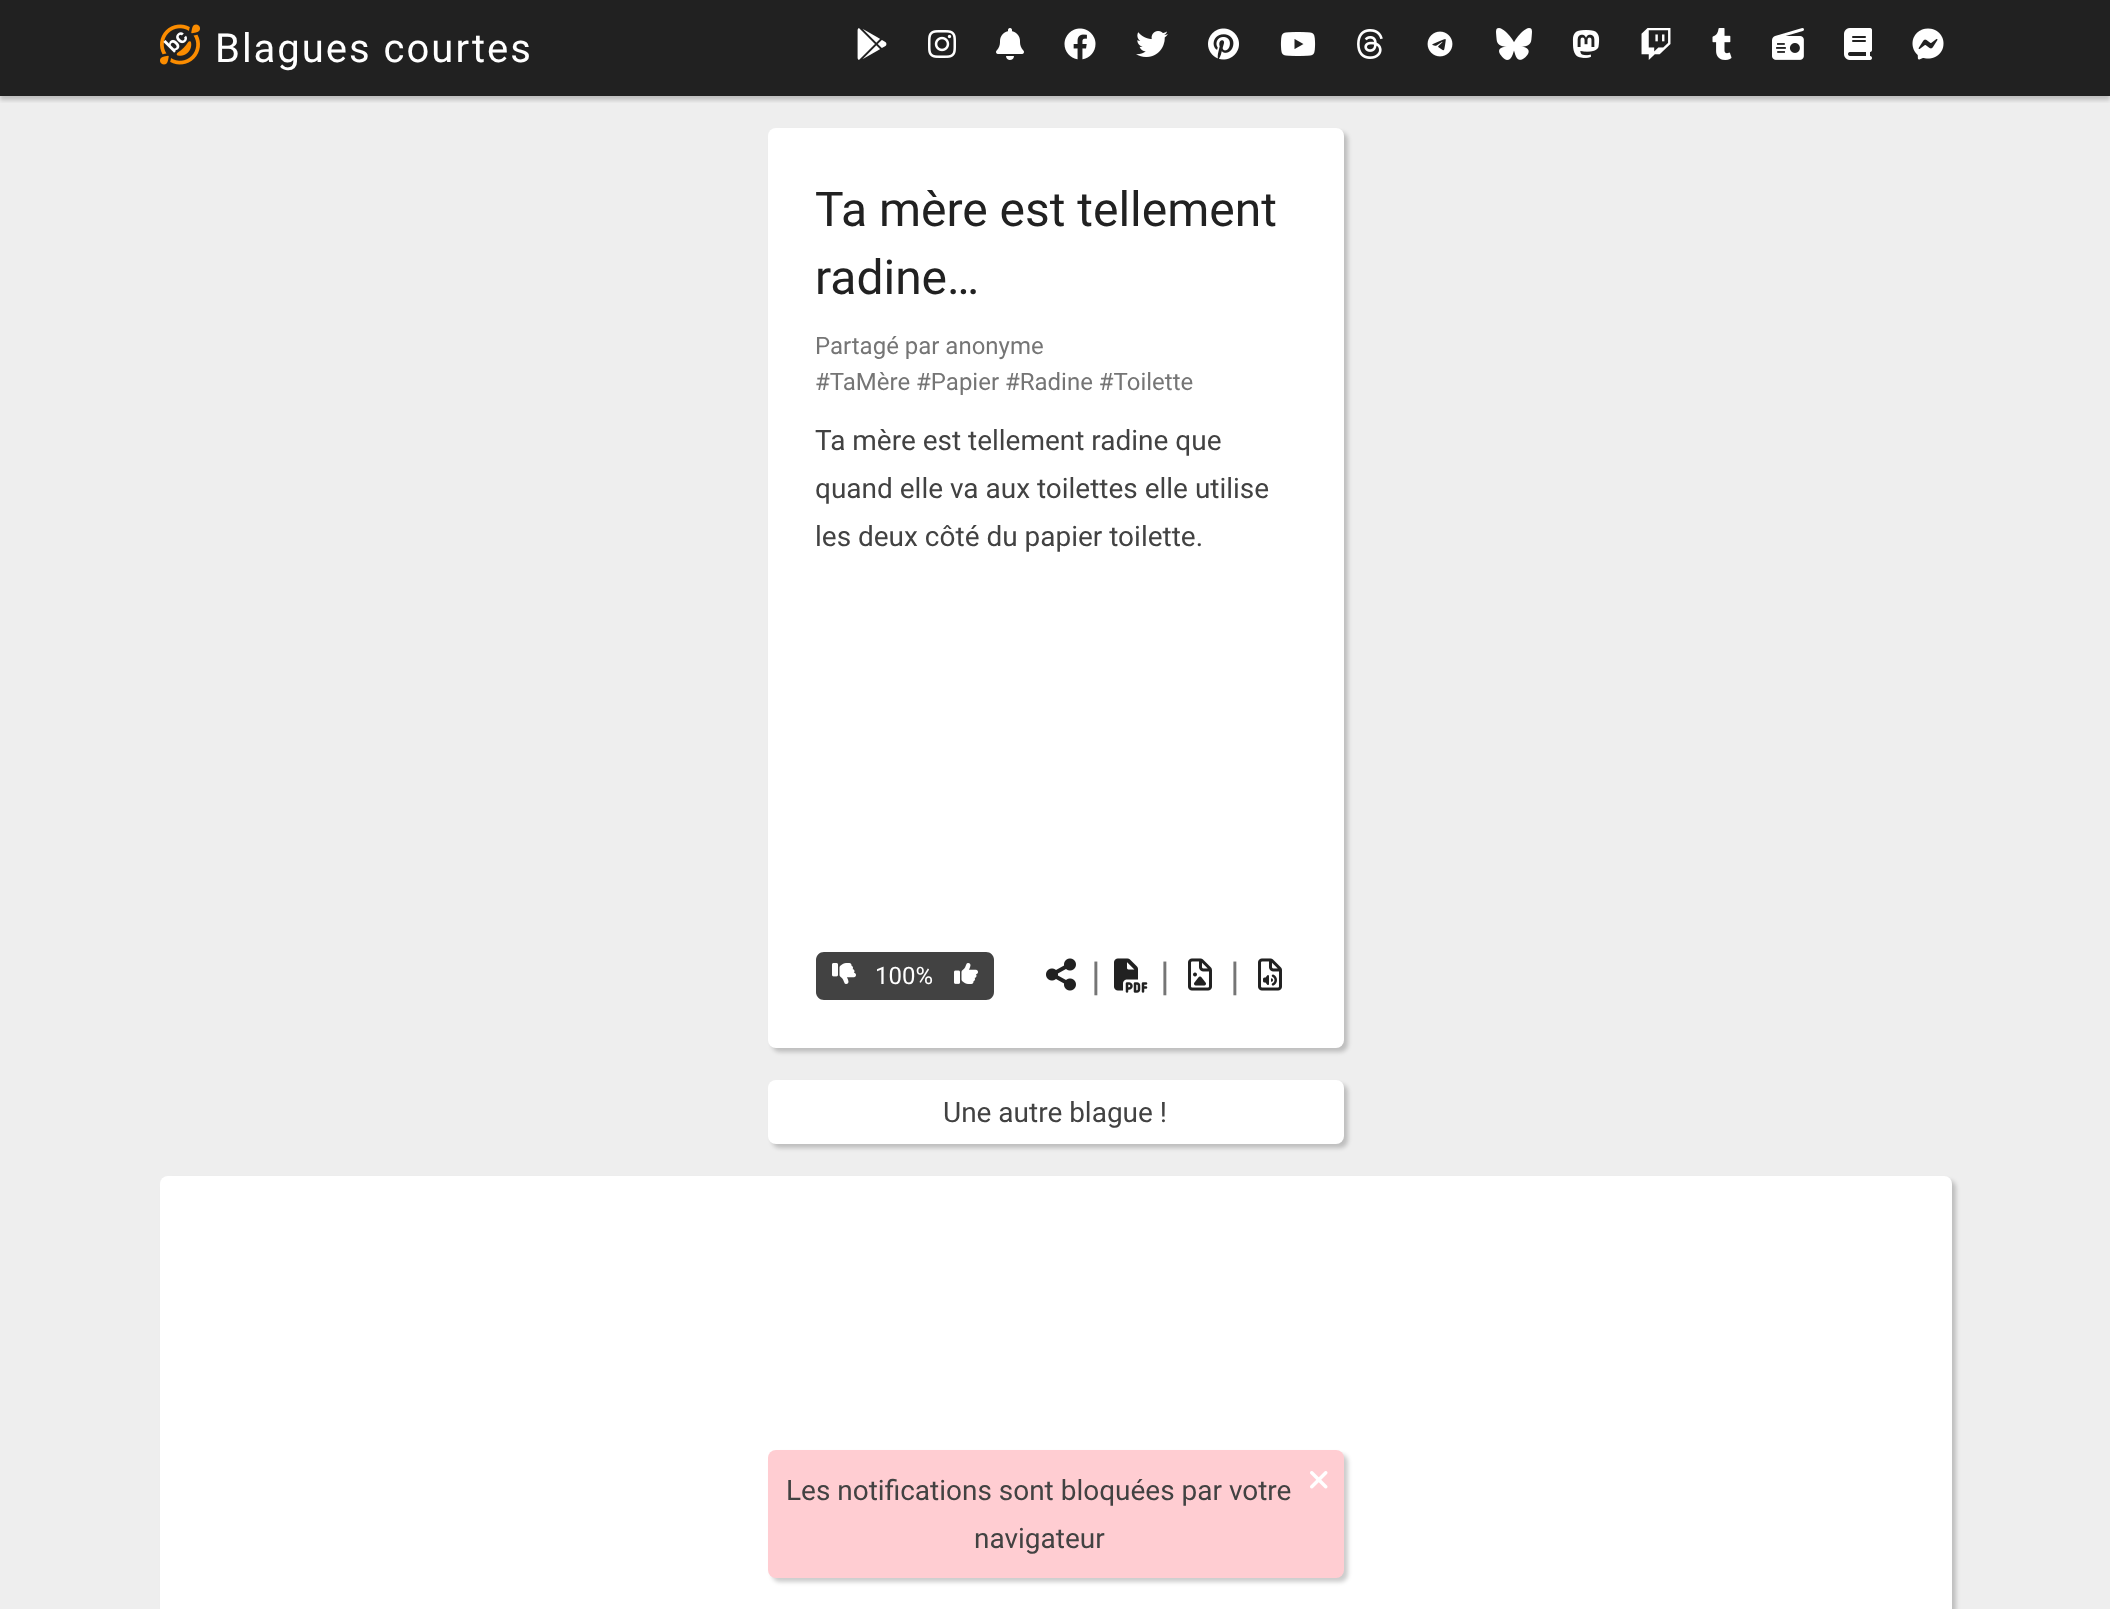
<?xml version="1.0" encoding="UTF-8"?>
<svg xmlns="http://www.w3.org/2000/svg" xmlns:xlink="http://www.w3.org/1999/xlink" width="2110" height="1609">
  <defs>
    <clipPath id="clip1"><rect x="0" y="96" width="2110" height="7" /></clipPath>
  </defs>
  <rect width="100%" height="100%" fill="#212121" />
  <rect y="96" width="2110" height="1513" fill="#eeeeee" />
  <g clip-path="url(#clip1)">
    <rect y="4" width="2110" height="96" fill="#000000" fill-opacity="0.2" filter="blur(2px)" />
  </g>
  <image x="160" y="24" width="40" height="41" xlink:href="image1.png" />
  <image x="163" y="39" width="17" height="14" xlink:href="image2.png" />
  <image x="176" y="32" width="11" height="12" xlink:href="image3.png" />
  <image x="857" y="28" width="30" height="32" xlink:href="image4.png" />
  <image x="928" y="30" width="28" height="28" xlink:href="image5.png" />
  <image x="996" y="28" width="28" height="32" xlink:href="image6.png" />
  <image x="1064" y="28" width="32" height="32" xlink:href="image7.png" />
  <image x="1136" y="31" width="32" height="26" xlink:href="image8.png" />
  <image x="1208" y="28" width="31" height="32" xlink:href="image9.png" />
  <image x="1280" y="32" width="36" height="24" xlink:href="image10.png" />
  <image x="1357" y="29" width="26" height="30" xlink:href="image11.png" />
  <image x="1427" y="31" width="26" height="26" xlink:href="image12.png" />
  <image x="1496" y="28" width="36" height="32" xlink:href="image13.png" />
  <image x="1572" y="30" width="28" height="28" xlink:href="image14.png" />
  <image x="1641" y="28" width="30" height="32" xlink:href="image15.png" />
  <image x="1712" y="28" width="20" height="32" xlink:href="image16.png" />
  <image x="1772" y="28" width="32" height="32" xlink:href="image17.png" />
  <image x="1844" y="28" width="28" height="32" xlink:href="image18.png" />
  <image x="1912" y="28" width="32" height="32" xlink:href="image19.png" />
  <rect x="772" y="132" width="576" height="920" rx="8" fill="#000000" fill-opacity="0.2" filter="blur(2px)" />
  <rect x="768" y="128" width="576" height="920" rx="8" fill="#ffffff" />
  <path d="M 824 952 h 48 v 48 h -48 c -4.5 0 -8 -3.5 -8 -8 v -32 c 0 -4.5 3.5 -8 8 -8 z" fill="#424242" />
  <image x="832" y="963" width="24" height="21" xlink:href="image20.png" />
  <rect x="872" y="952" width="66" height="48" fill="#424242" />
  <path d="M 938 952 h 48 c 4.5 0 8 3.5 8 8 v 32 c 0 4.5 -3.5 8 -8 8 h -48 z" fill="#424242" />
  <image x="954" y="963" width="24" height="21" xlink:href="image21.png" />
  <image x="1046" y="958" width="30" height="33" xlink:href="image22.png" />
  <image x="1114" y="958" width="34" height="35" xlink:href="image23.png" />
  <image x="1188" y="958" width="24" height="33" xlink:href="image24.png" />
  <image x="1258" y="958" width="24" height="33" xlink:href="image25.png" />
  <rect x="772" y="1084" width="576" height="64" rx="8" fill="#000000" fill-opacity="0.2" filter="blur(2px)" />
  <rect x="768" y="1080" width="576" height="64" rx="8" fill="#ffffff" />
  <rect x="164" y="1180" width="1792" height="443" rx="8" fill="#000000" fill-opacity="0.2" filter="blur(2px)" />
  <rect x="160" y="1176" width="1792" height="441" rx="8" fill="#ffffff" />
  <rect x="772" y="1454" width="576" height="128" rx="8" fill="#000000" fill-opacity="0.2" filter="blur(2px)" />
  <rect x="768" y="1450" width="576" height="128" rx="8" fill="#ffcdd2" />
  <image x="1310" y="1471" width="18" height="18" xlink:href="image26.png" />
  <text x="215" y="62" style="font-family: Roboto; font-size: 40px; letter-spacing: 2px; fill: #ffffff">Blagues courtes</text>
  <text x="815" y="226" style="font-family: Roboto; font-size: 48px; fill: #212121">Ta mère est tellement</text>
  <text x="815" y="294" style="font-family: Roboto; font-size: 48px; fill: #212121">radine…</text>
  <text x="815" y="354" style="font-family: Roboto; font-size: 24px; fill: #757575">Partagé par anonyme</text>
  <text x="815" y="390" style="font-family: Roboto; font-size: 24px; fill: #757575">#TaMère #Papier #Radine #Toilette</text>
  <text x="815" y="450" style="font-family: Roboto; font-size: 28px; fill: #424242">Ta mère est tellement radine que</text>
  <text x="815" y="498" style="font-family: Roboto; font-size: 28px; fill: #424242">quand elle va aux toilettes elle utilise</text>
  <text x="815" y="546" style="font-family: Roboto; font-size: 28px; fill: #424242">les deux côté du papier toilette.</text>
  <text x="875" y="984" style="font-family: Roboto; font-size: 24px; fill: #ffffff">100%</text>
  <text x="1091" y="990" style="font-family: Roboto; font-size: 40px; fill: #757575">|</text>
  <text x="1160" y="990" style="font-family: Roboto; font-size: 40px; fill: #757575">|</text>
  <text x="1230" y="990" style="font-family: Roboto; font-size: 40px; fill: #757575">|</text>
  <text x="943" y="1122" style="font-family: Roboto; font-size: 28px; fill: #424242">Une autre blague !</text>
  <text x="786" y="1500" style="font-family: Roboto; font-size: 28px; fill: #424242">Les notifications sont bloquées par votre</text>
  <text x="974" y="1548" style="font-family: Roboto; font-size: 28px; fill: #424242">navigateur</text>
</svg>
